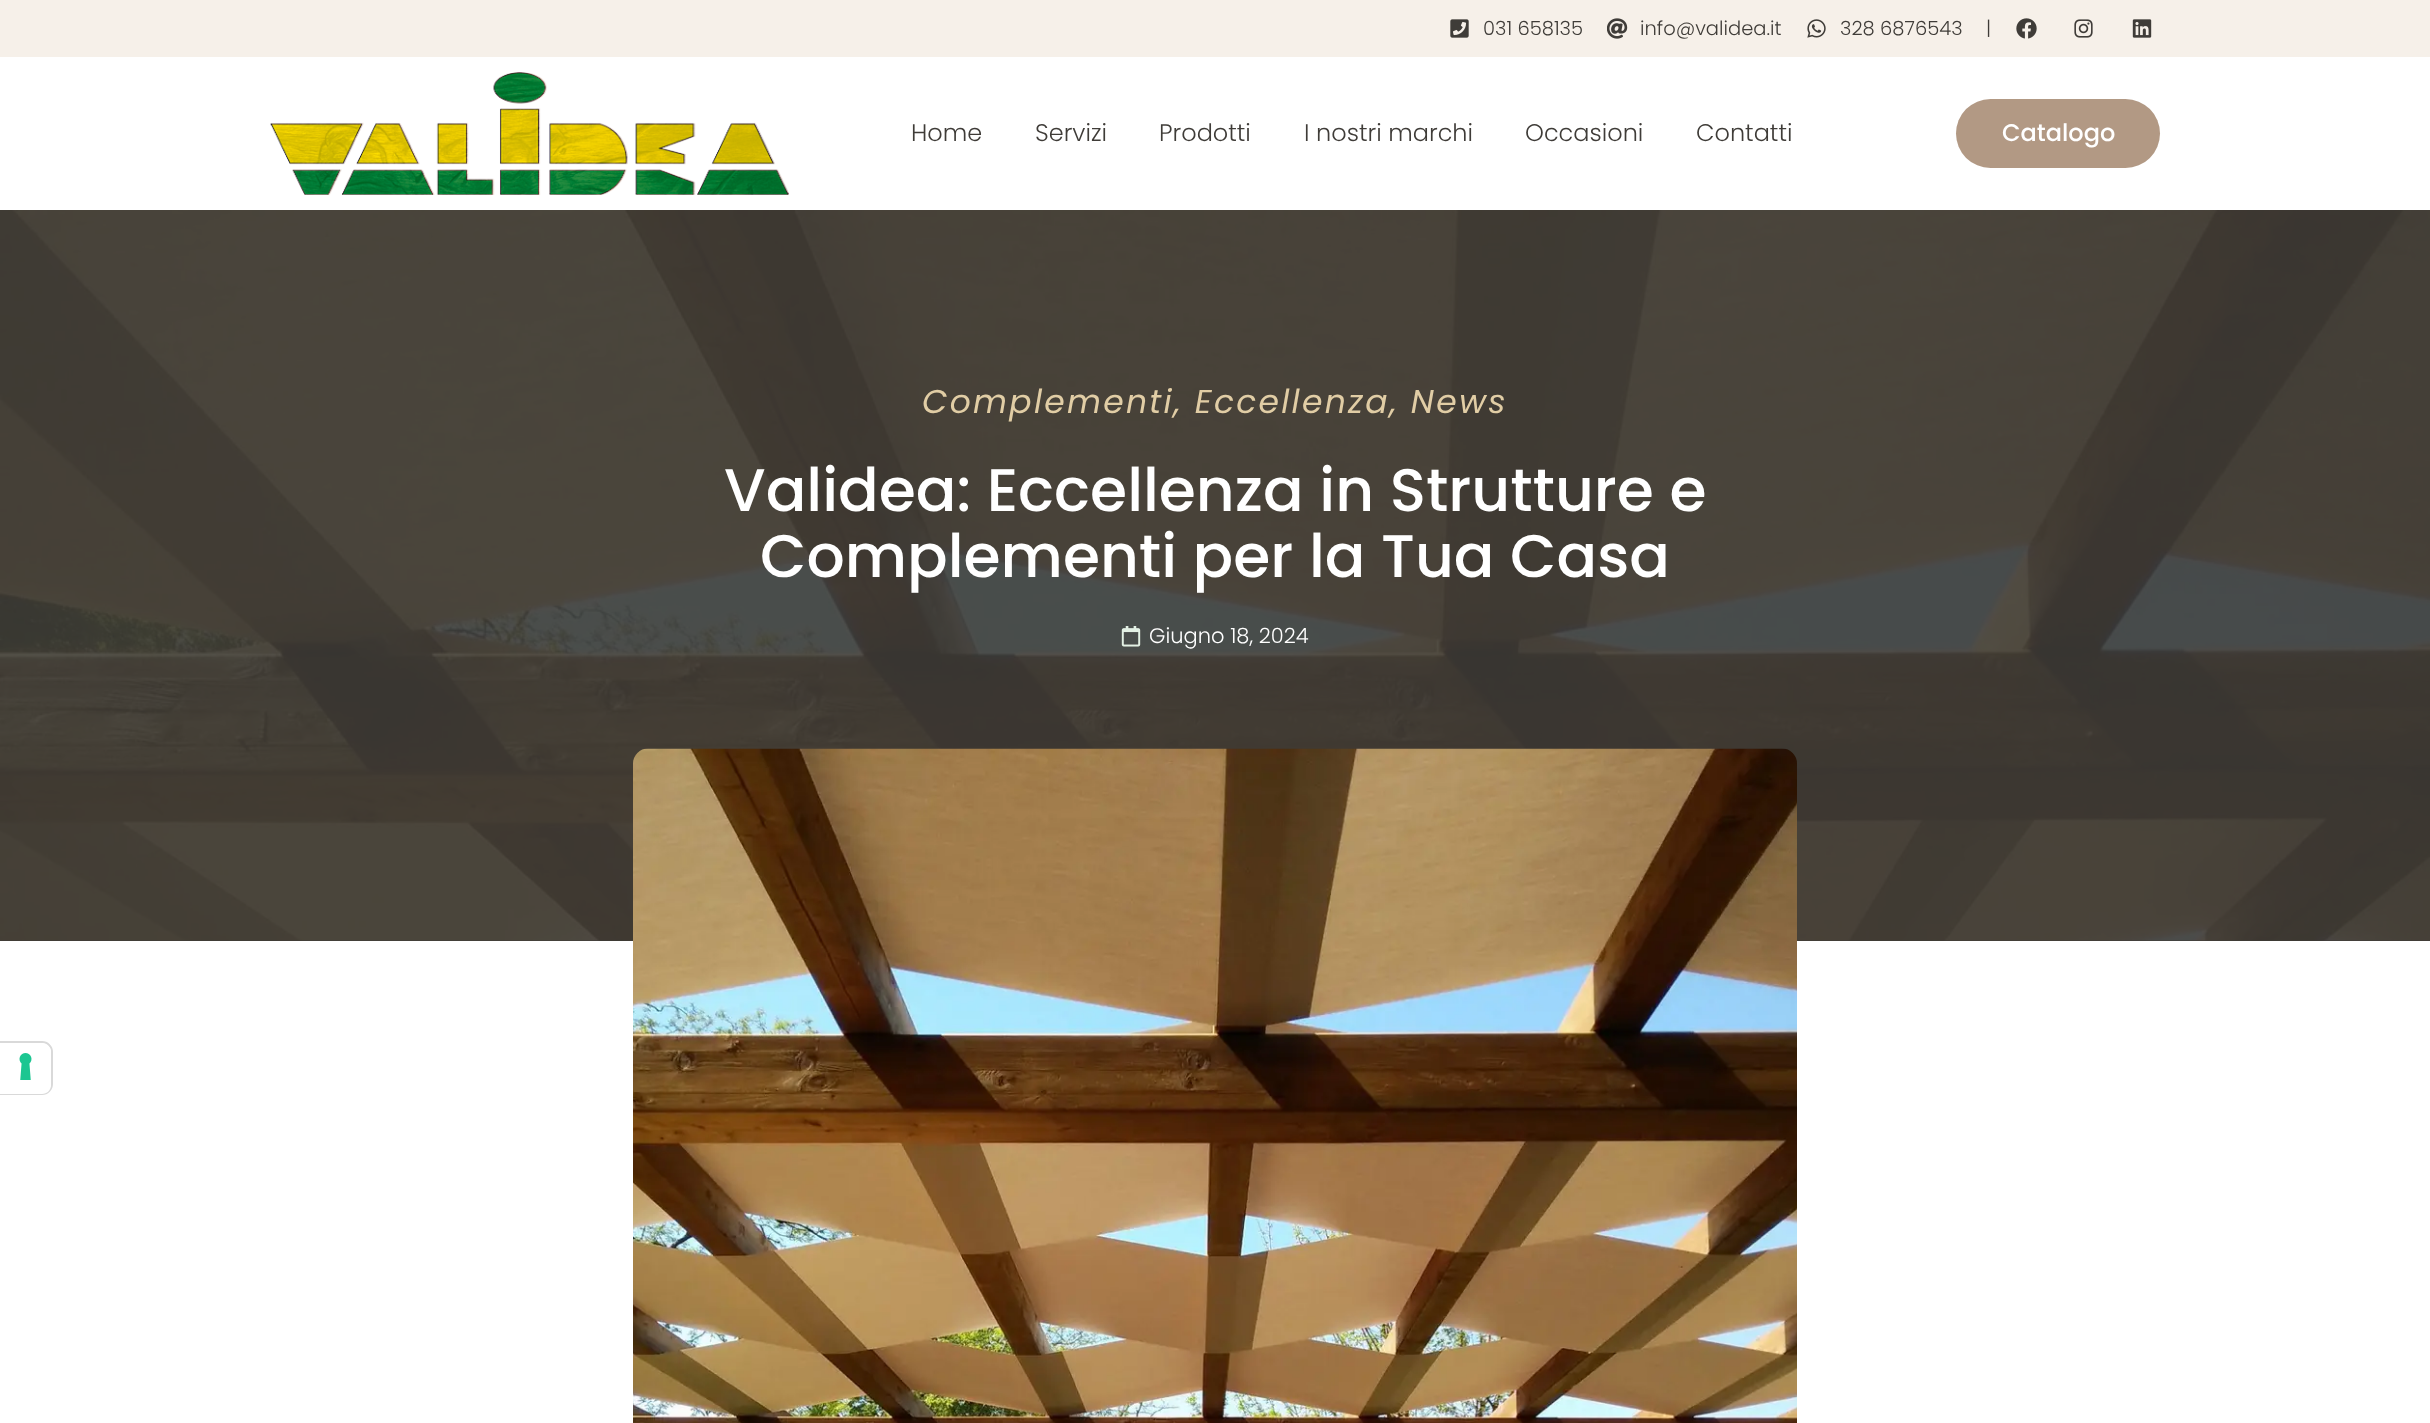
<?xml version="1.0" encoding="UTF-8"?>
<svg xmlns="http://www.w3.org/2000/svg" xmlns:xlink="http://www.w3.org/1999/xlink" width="2430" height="1423">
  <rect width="100%" height="100%" fill="#ffffff" />
  <rect width="2430" height="57" fill="#f6f0e9" />
  <image x="1450" y="19" width="19" height="19" xlink:href="image1.png" />
  <image x="1607" y="18" width="21" height="21" xlink:href="image2.png" />
  <image x="1807" y="19" width="19" height="19" xlink:href="image3.png" />
  <image x="2016" y="18" width="21" height="21" xlink:href="image4.png" />
  <image x="2074" y="19" width="19" height="19" xlink:href="image5.png" />
  <image x="2132" y="19" width="20" height="19" xlink:href="image6.png" />
  <image x="270" y="72" width="519" height="123" xlink:href="image7.png" />
  <rect x="1956" y="99" width="204" height="69" rx="34.5" fill="#b29984" />
  <rect y="210" width="2430" height="731" fill="#3e3c37" />
  <image x="0" y="210" width="2430" height="731" xlink:href="image8.png" />
  <image x="1121" y="626" width="20" height="21" xlink:href="image9.png" />
  <image x="633" y="748" width="1164" height="675" xlink:href="image10.png" />
  <path d="M 0 1042 h 42 c 5.5 0 10 4.5 10 10 v 32 c 0 5.5 -4.5 10 -10 10 h -42 z" fill="none" stroke="#d9d9d9" stroke-width="2" />
  <path d="M 0 1043 h 42 c 5 0 9 4 9 9 v 33 c 0 5 -4 9 -9 9 h -42 z" fill="#ffffff" />
  <image x="19" y="1053" width="13" height="27" xlink:href="image11.png" />
  <text x="1483" y="35" style="font-family: Poppins; font-size: 19.5px; font-weight: 300; fill: #3f3c38">031 658135</text>
  <text x="1640" y="35" style="font-family: Poppins; font-size: 19.5px; font-weight: 300; fill: #3f3c38">info@validea.it</text>
  <text x="1840" y="35" style="font-family: Poppins; font-size: 19.5px; font-weight: 300; fill: #3f3c38">328 6876543</text>
  <text x="1986" y="35" style="font-family: Poppins; font-size: 19.5px; font-weight: 300; fill: #3f3c38">|</text>
  <text x="911" y="141" style="font-family: Poppins; font-size: 24px; font-weight: 300; fill: #3f3c38">Home</text>
  <text x="1035" y="141" style="font-family: Poppins; font-size: 24px; font-weight: 300; fill: #3f3c38">Servizi</text>
  <text x="1159" y="141" style="font-family: Poppins; font-size: 24px; font-weight: 300; fill: #3f3c38">Prodotti</text>
  <text x="1304" y="141" style="font-family: Poppins; font-size: 24px; font-weight: 300; fill: #3f3c38">I nostri marchi</text>
  <text x="1525" y="141" style="font-family: Poppins; font-size: 24px; font-weight: 300; fill: #3f3c38">Occasioni</text>
  <text x="1696" y="141" style="font-family: Poppins; font-size: 24px; font-weight: 300; fill: #3f3c38">Contatti</text>
  <text x="2002" y="141" style="font-family: Poppins; font-size: 24px; font-weight: 500; fill: #ffffff">Catalogo</text>
  <text x="922" y="413" style="font-family: Poppins; font-size: 33px; font-style: italic; letter-spacing: 2.25px; fill: #e1cda5">Complementi, Eccellenza, News</text>
  <text x="724" y="511" style="font-family: Poppins; font-size: 60px; font-weight: 500; fill: #ffffff">Validea: Eccellenza in Strutture e</text>
  <text x="760" y="577" style="font-family: Poppins; font-size: 60px; font-weight: 500; fill: #ffffff">Complementi per la Tua Casa</text>
  <text x="1149" y="643" style="font-family: Poppins; font-size: 21px; font-weight: 300; fill: #ffffff">Giugno 18, 2024</text>
</svg>
